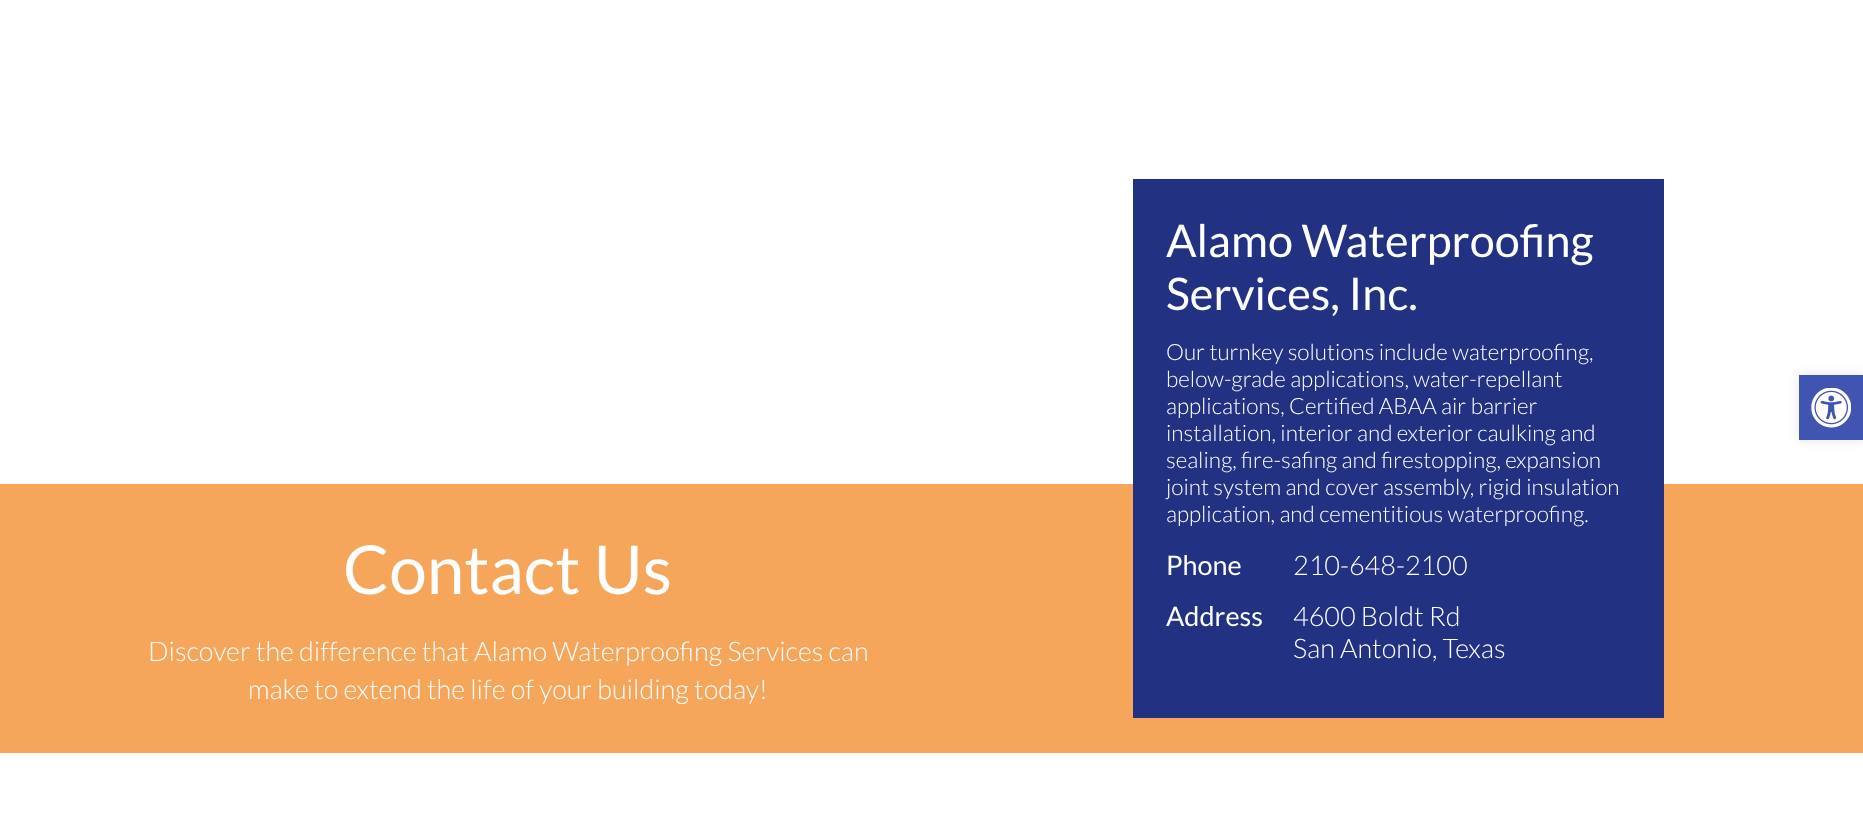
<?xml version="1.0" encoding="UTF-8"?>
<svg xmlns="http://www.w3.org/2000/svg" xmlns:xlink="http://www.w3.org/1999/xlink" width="1863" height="832">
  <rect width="100%" height="100%" fill="#ffffff" />
  <rect y="484" width="1863" height="269" fill="#f5a65a" />
  <rect x="1133" y="179" width="531" height="539" fill="#223182" />
  <rect x="1799" y="375" width="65" height="65" fill="#000000" fill-opacity="0.1" filter="blur(6px)" />
  <rect x="1799" y="375" width="64" height="65" fill="#4054b2" />
  <image x="1811" y="388" width="40" height="40" xlink:href="image1.png" />
  <text x="343" y="594" style="font-family: Lato; font-size: 67.5px; fill: #ffffff">Contact Us</text>
  <text x="148" y="661" style="font-family: Lato; font-size: 27px; font-weight: 300; fill: #ffffff">Discover the difference that Alamo Waterproofing Services can</text>
  <text x="248" y="699" style="font-family: Lato; font-size: 27px; font-weight: 300; fill: #ffffff">make to extend the life of your building today!</text>
  <text x="1166" y="257" style="font-family: Lato; font-size: 45px; fill: #ffffff">Alamo Waterproofing</text>
  <text x="1166" y="310" style="font-family: Lato; font-size: 45px; fill: #ffffff">Services, Inc.</text>
  <text x="1166" y="360" style="font-family: Lato; font-size: 22.5px; font-weight: 300; fill: #ffffff">Our turnkey solutions include waterproofing,</text>
  <text x="1166" y="387" style="font-family: Lato; font-size: 22.5px; font-weight: 300; fill: #ffffff">below-grade applications, water-repellant</text>
  <text x="1166" y="414" style="font-family: Lato; font-size: 22.5px; font-weight: 300; fill: #ffffff">applications, Certified ABAA air barrier</text>
  <text x="1166" y="441" style="font-family: Lato; font-size: 22.5px; font-weight: 300; fill: #ffffff">installation, interior and exterior caulking and</text>
  <text x="1166" y="468" style="font-family: Lato; font-size: 22.5px; font-weight: 300; fill: #ffffff">sealing, fire-safing and firestopping, expansion</text>
  <text x="1166" y="495" style="font-family: Lato; font-size: 22.5px; font-weight: 300; fill: #ffffff">joint system and cover assembly, rigid insulation</text>
  <text x="1166" y="522" style="font-family: Lato; font-size: 22.5px; font-weight: 300; fill: #ffffff">application, and cementitious waterproofing.</text>
  <text x="1166" y="575" style="font-family: Lato; font-size: 27px; fill: #ffffff">Phone</text>
  <text x="1293" y="575" style="font-family: Lato; font-size: 27px; font-weight: 300; fill: #ffffff">210-648-2100</text>
  <text x="1166" y="626" style="font-family: Lato; font-size: 27px; fill: #ffffff">Address</text>
  <text x="1293" y="626" style="font-family: Lato; font-size: 27px; font-weight: 300; fill: #ffffff">4600 Boldt Rd</text>
  <text x="1293" y="658" style="font-family: Lato; font-size: 27px; font-weight: 300; fill: #ffffff">San Antonio, Texas</text>
</svg>
